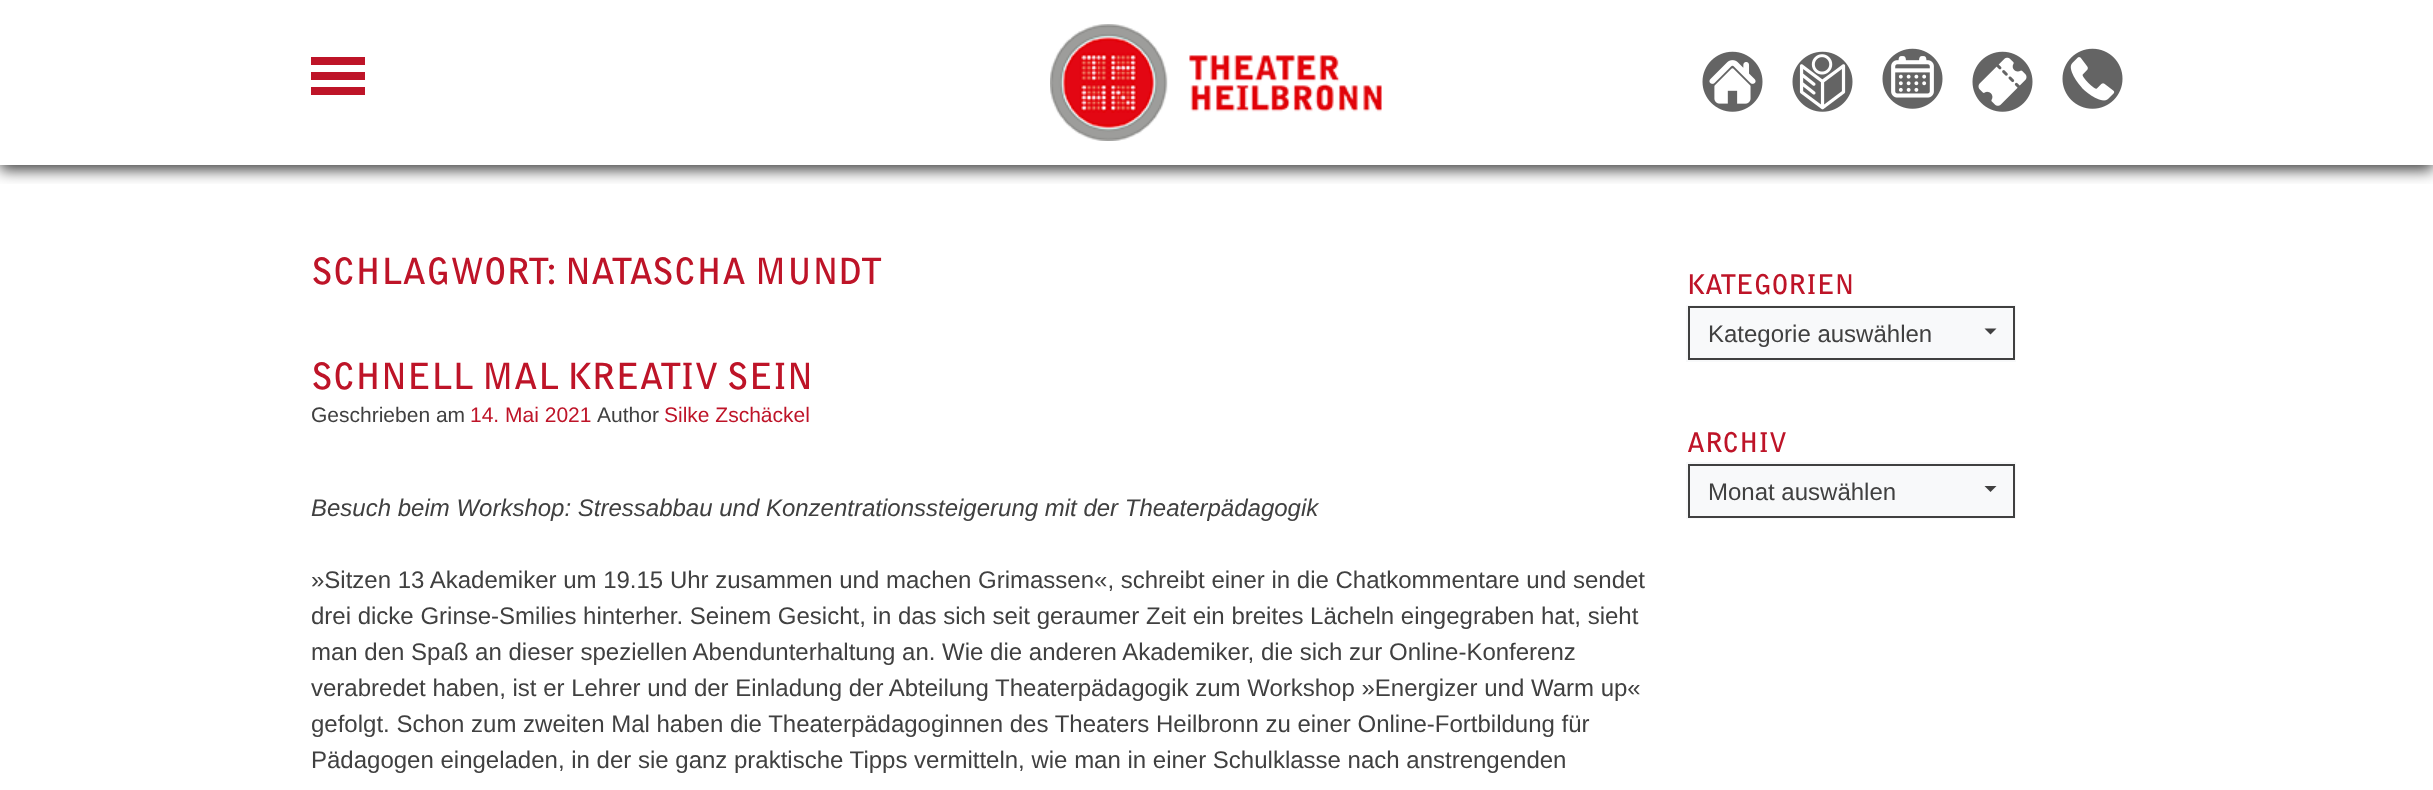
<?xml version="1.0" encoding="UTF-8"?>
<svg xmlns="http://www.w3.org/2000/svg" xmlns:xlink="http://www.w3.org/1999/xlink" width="2433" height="790">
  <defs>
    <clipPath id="clip1"><rect x="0" y="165" width="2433" height="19" /></clipPath>
  </defs>
  <rect width="100%" height="100%" fill="#ffffff" />
  <g clip-path="url(#clip1)">
    <rect y="5" width="2433" height="165" fill="#000000" fill-opacity="0.75" filter="blur(7.5px)" />
  </g>
  <rect x="311" y="57" width="54" height="8" fill="#be1428" />
  <rect x="311" y="72" width="54" height="8" fill="#be1428" />
  <rect x="311" y="87" width="54" height="8" fill="#be1428" />
  <image x="1050" y="24" width="332" height="117" xlink:href="image1.png" />
  <image x="1702" y="51" width="61" height="61" xlink:href="image2.png" />
  <image x="1792" y="51" width="61" height="61" xlink:href="image3.png" />
  <image x="1882" y="48" width="61" height="61" xlink:href="image4.png" />
  <image x="1972" y="51" width="61" height="61" xlink:href="image5.png" />
  <image x="2062" y="48" width="61" height="61" xlink:href="image6.png" />
  <rect x="1686" y="305" width="330" height="57" fill="#f8f9fa" />
  <path d="M 1984.5 328.5 h 12 l -6 6 z" fill="#404040" />
  <rect x="1689" y="307" width="325" height="52" fill="none" stroke="#404040" stroke-width="2" />
  <rect x="1686" y="462" width="330" height="57" fill="#f8f9fa" />
  <path d="M 1984.5 486 h 12 l -6 6 z" fill="#404040" />
  <rect x="1689" y="465" width="325" height="52" fill="none" stroke="#404040" stroke-width="2" />
  <text x="311" y="284" style="font-family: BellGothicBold; font-size: 36px; font-weight: bold; fill: #be1428">SCHLAGWORT: NATASCHA MUNDT</text>
  <text x="311" y="389" style="font-family: BellGothicBold; font-size: 36px; font-weight: bold; fill: #be1428">SCHNELL MAL KREATIV SEIN</text>
  <text x="311" y="422" style="font-family: Liberation Sans; font-size: 21px; fill: #404040">Geschrieben am</text>
  <text x="470" y="422" style="font-family: Liberation Sans; font-size: 21px; fill: #be1428">14. Mai 2021</text>
  <text x="597" y="422" style="font-family: Liberation Sans; font-size: 21px; fill: #404040">Author</text>
  <text x="664" y="422" style="font-family: Liberation Sans; font-size: 21px; fill: #be1428">Silke Zschäckel</text>
  <text x="311" y="516" style="font-family: Liberation Sans; font-size: 24px; font-style: italic; fill: #404040">Besuch beim Workshop: Stressabbau und Konzentrationssteigerung mit der Theaterpädagogik</text>
  <text x="311" y="588" style="font-family: Liberation Sans; font-size: 24px; fill: #404040">»Sitzen 13 Akademiker um 19.15 Uhr zusammen und machen Grimassen«, schreibt einer in die Chatkommentare und sendet</text>
  <text x="311" y="624" style="font-family: Liberation Sans; font-size: 24px; fill: #404040">drei dicke Grinse-Smilies hinterher. Seinem Gesicht, in das sich seit geraumer Zeit ein breites Lächeln eingegraben hat, sieht</text>
  <text x="311" y="660" style="font-family: Liberation Sans; font-size: 24px; fill: #404040">man den Spaß an dieser speziellen Abendunterhaltung an. Wie die anderen Akademiker, die sich zur Online-Konferenz</text>
  <text x="311" y="696" style="font-family: Liberation Sans; font-size: 24px; fill: #404040">verabredet haben, ist er Lehrer und der Einladung der Abteilung Theaterpädagogik zum Workshop »Energizer und Warm up«</text>
  <text x="311" y="732" style="font-family: Liberation Sans; font-size: 24px; fill: #404040">gefolgt. Schon zum zweiten Mal haben die Theaterpädagoginnen des Theaters Heilbronn zu einer Online-Fortbildung für</text>
  <text x="311" y="768" style="font-family: Liberation Sans; font-size: 24px; fill: #404040">Pädagogen eingeladen, in der sie ganz praktische Tipps vermitteln, wie man in einer Schulklasse nach anstrengenden</text>
  <text x="1687" y="294" style="font-family: BellGothicBold; font-size: 27px; font-weight: bold; fill: #be1428">KATEGORIEN</text>
  <text x="1708" y="342" style="font-family: Liberation Sans; font-size: 24px; fill: #404040">Kategorie auswählen</text>
  <text x="1687" y="452" style="font-family: BellGothicBold; font-size: 27px; font-weight: bold; fill: #be1428">ARCHIV</text>
  <text x="1708" y="500" style="font-family: Liberation Sans; font-size: 24px; fill: #404040">Monat auswählen</text>
</svg>
